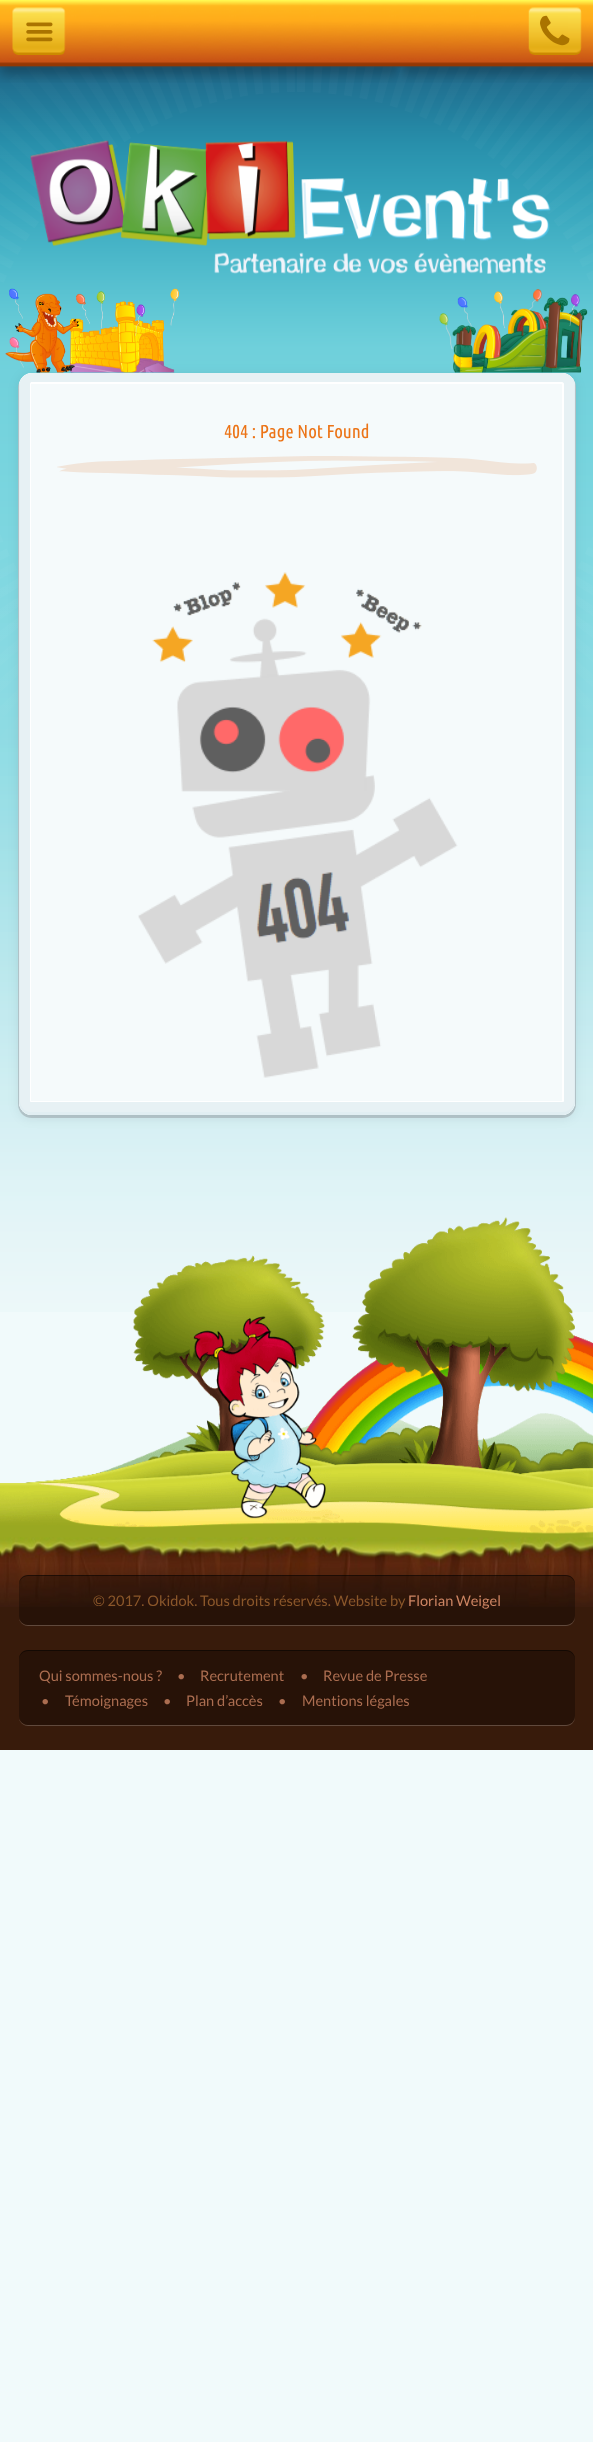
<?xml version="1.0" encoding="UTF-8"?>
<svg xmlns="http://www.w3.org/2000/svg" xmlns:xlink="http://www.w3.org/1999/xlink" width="593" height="2442">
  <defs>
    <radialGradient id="g1" gradientUnits="userSpaceOnUse" cx="297" cy="413" r="532"><stop offset="0.05" stop-color="#ffffff" stop-opacity="0.06" /><stop offset="1" stop-color="#ffffff" stop-opacity="0" /></radialGradient>
  </defs>
  <rect width="100%" height="100%" fill="#f1fafb" />
  <image x="0" y="66" width="593" height="1246" xlink:href="image1.png" />
  <path d="M 297 32.5 c 209.5 0 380 170 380 380 c 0 210 -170.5 380 -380 380 c -210 0 -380 -170 -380 -380 c 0 -210 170 -380 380 -380 z" fill="none" stroke="url(#g1)" stroke-width="118.8" stroke-dasharray="9.28 9.28" />
  <image x="0" y="0" width="593" height="83" xlink:href="image2.png" />
  <path d="M 13 50 c 0 6 8 5 12 5 h 28 c 8 0 12 1 12 -7 c 0 2 -2 4 -5 4 h -42 c -2 0 -4 -1 -5 -2 z" fill="#cc8a00" />
  <image x="12" y="7" width="54" height="46" xlink:href="image3.png" />
  <image x="26" y="22" width="27" height="20" xlink:href="image4.png" />
  <path d="M 529 49 c 0 7 6 6 12 6 h 28 c 6 0 12 1 12 -6 c -1 2 -3 3 -5 3 h -42 c -2 0 -4 -1 -5 -3 z" fill="#cc8a00" />
  <image x="528" y="7" width="54" height="46" xlink:href="image5.png" />
  <image x="540" y="15" width="30" height="31" xlink:href="image6.png" />
  <image x="30" y="140" width="521" height="134" xlink:href="image7.png" />
  <path d="M 20 381 c -1 2 -2 4 -2 6 v 717 c 0 8 6 14 14 14 h 530 c 8 0 14 -6 14 -14 v -717 c 0 -3 -1 -6 -3 -8 c 1 2 2 4 2 6 v 717 c 0 7 -6 13 -13 13 h -531 c -7 0 -12 -6 -12 -13 v -717 z" fill="#b8cacf" />
  <rect x="19" y="375" width="556" height="743" rx="13" fill="#000000" fill-opacity="0.08" filter="blur(6px)" />
  <image x="5" y="288" width="174" height="85" xlink:href="image8.png" />
  <image x="439" y="289" width="149" height="84" xlink:href="image9.png" />
  <rect x="19" y="373" width="556" height="742" rx="13" fill="#f5fafb" />
  <path d="M 32 373 c -7 0 -13 6 -13 13 v 716 c 0 7 6 13 13 13 h 530 c 7 0 13 -6 13 -13 v -716 c 0 -7 -6 -13 -13 -13 z m -1 11 v 717 h 531 v -717 z" fill="#ffffff" fill-rule="evenodd" />
  <path d="M 32 373 c -7 0 -13 6 -13 13 v 716 c 0 7 6 13 13 13 h 530 c 7 0 13 -6 13 -13 v -716 c 0 -7 -6 -13 -13 -13 z m -1 9 c 0 0 -1 1 -1 2 v 717 c 0 1 1 1 1 1 h 531 c 1 0 2 0 2 -1 v -717 c 0 -1 -1 -2 -2 -2 z" fill="#e7f1f4" fill-rule="evenodd" />
  <path d="M 21 379 c -1 2 -2 4 -2 7 v 716 c 0 7 6 13 13 13 h 530 c 7 0 13 -6 13 -13 v -716 c 0 -3 -1 -5 -2 -8 c 0 2 1 4 1 6 v 717 c 0 6 -5 11 -12 11 h -531 c -6 0 -11 -5 -11 -11 v -717 c 0 -2 0 -4 1 -5 z" fill="#e1eef2" />
  <image x="138" y="572" width="320" height="506" xlink:href="image10.png" />
  <image x="57" y="456" width="480" height="22" xlink:href="image11.png" />
  <image x="0" y="1537" width="593" height="70" xlink:href="image13.png" />
  <image x="0" y="1217" width="593" height="321" xlink:href="image12.png" />
  <rect y="1607" width="593" height="143" fill="#381b0b" />
  <path d="M 19 1619 c 1 4 5 7 9 7 h 538 c 5 0 9 -4 9 -9 v -1 c 0 5 -4 9 -9 9 h -538 c -4 0 -7 -2 -9 -6 z" fill="#60493c" />
  <rect x="19" y="1575" width="556" height="50" rx="9" fill="#000000" fill-opacity="0.3" />
  <path d="M 28 1576 h 538 c 5 0 9 4 9 9 v -1 c 0 -5 -4 -9 -9 -9 h -538 c -5 0 -9 4 -9 9 v 1 c 0 -5 4 -9 9 -9 z" fill="#000000" fill-opacity="0.5" />
  <path d="M 19 1719 c 1 4 5 7 9 7 h 538 c 5 0 9 -4 9 -9 v -1 c 0 5 -4 9 -9 9 h -538 c -4 0 -7 -2 -9 -6 z" fill="#60493c" />
  <rect x="19" y="1650" width="556" height="75" rx="9" fill="#000000" fill-opacity="0.3" />
  <path d="M 28 1651 h 538 c 5 0 9 4 9 9 v -1 c 0 -5 -4 -9 -9 -9 h -538 c -5 0 -9 4 -9 9 v 1 c 0 -5 4 -9 9 -9 z" fill="#000000" fill-opacity="0.5" />
  <text x="224" y="438" style="font-family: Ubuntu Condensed; font-size: 18.75px; fill: #ec7417">404 : Page Not Found</text>
  <text x="93" y="1606" style="font-family: Lato; font-size: 14.6px; fill: #8b572a">© 2017. Okidok. Tous droits réservés. Website by</text>
  <text x="408" y="1606" style="font-family: Lato; font-size: 14.6px; fill: #cc8462">Florian Weigel</text>
  <text x="39" y="1681" style="font-family: Lato; font-size: 14.6px; fill: #ab6d50">Qui sommes-nous ?</text>
  <text x="177" y="1681" style="font-family: Lato; font-size: 14.6px; fill: #ab6d50">•</text>
  <text x="200" y="1681" style="font-family: Lato; font-size: 14.6px; fill: #ab6d50">Recrutement</text>
  <text x="300" y="1681" style="font-family: Lato; font-size: 14.6px; fill: #ab6d50">•</text>
  <text x="323" y="1681" style="font-family: Lato; font-size: 14.6px; fill: #ab6d50">Revue de Presse</text>
  <text x="41" y="1706" style="font-family: Lato; font-size: 14.6px; fill: #ab6d50">•</text>
  <text x="65" y="1706" style="font-family: Lato; font-size: 14.6px; fill: #ab6d50">Témoignages</text>
  <text x="163" y="1706" style="font-family: Lato; font-size: 14.6px; fill: #ab6d50">•</text>
  <text x="186" y="1706" style="font-family: Lato; font-size: 14.6px; fill: #ab6d50">Plan d’accès</text>
  <text x="278" y="1706" style="font-family: Lato; font-size: 14.6px; fill: #ab6d50">•</text>
  <text x="302" y="1706" style="font-family: Lato; font-size: 14.6px; fill: #ab6d50">Mentions légales</text>
</svg>
